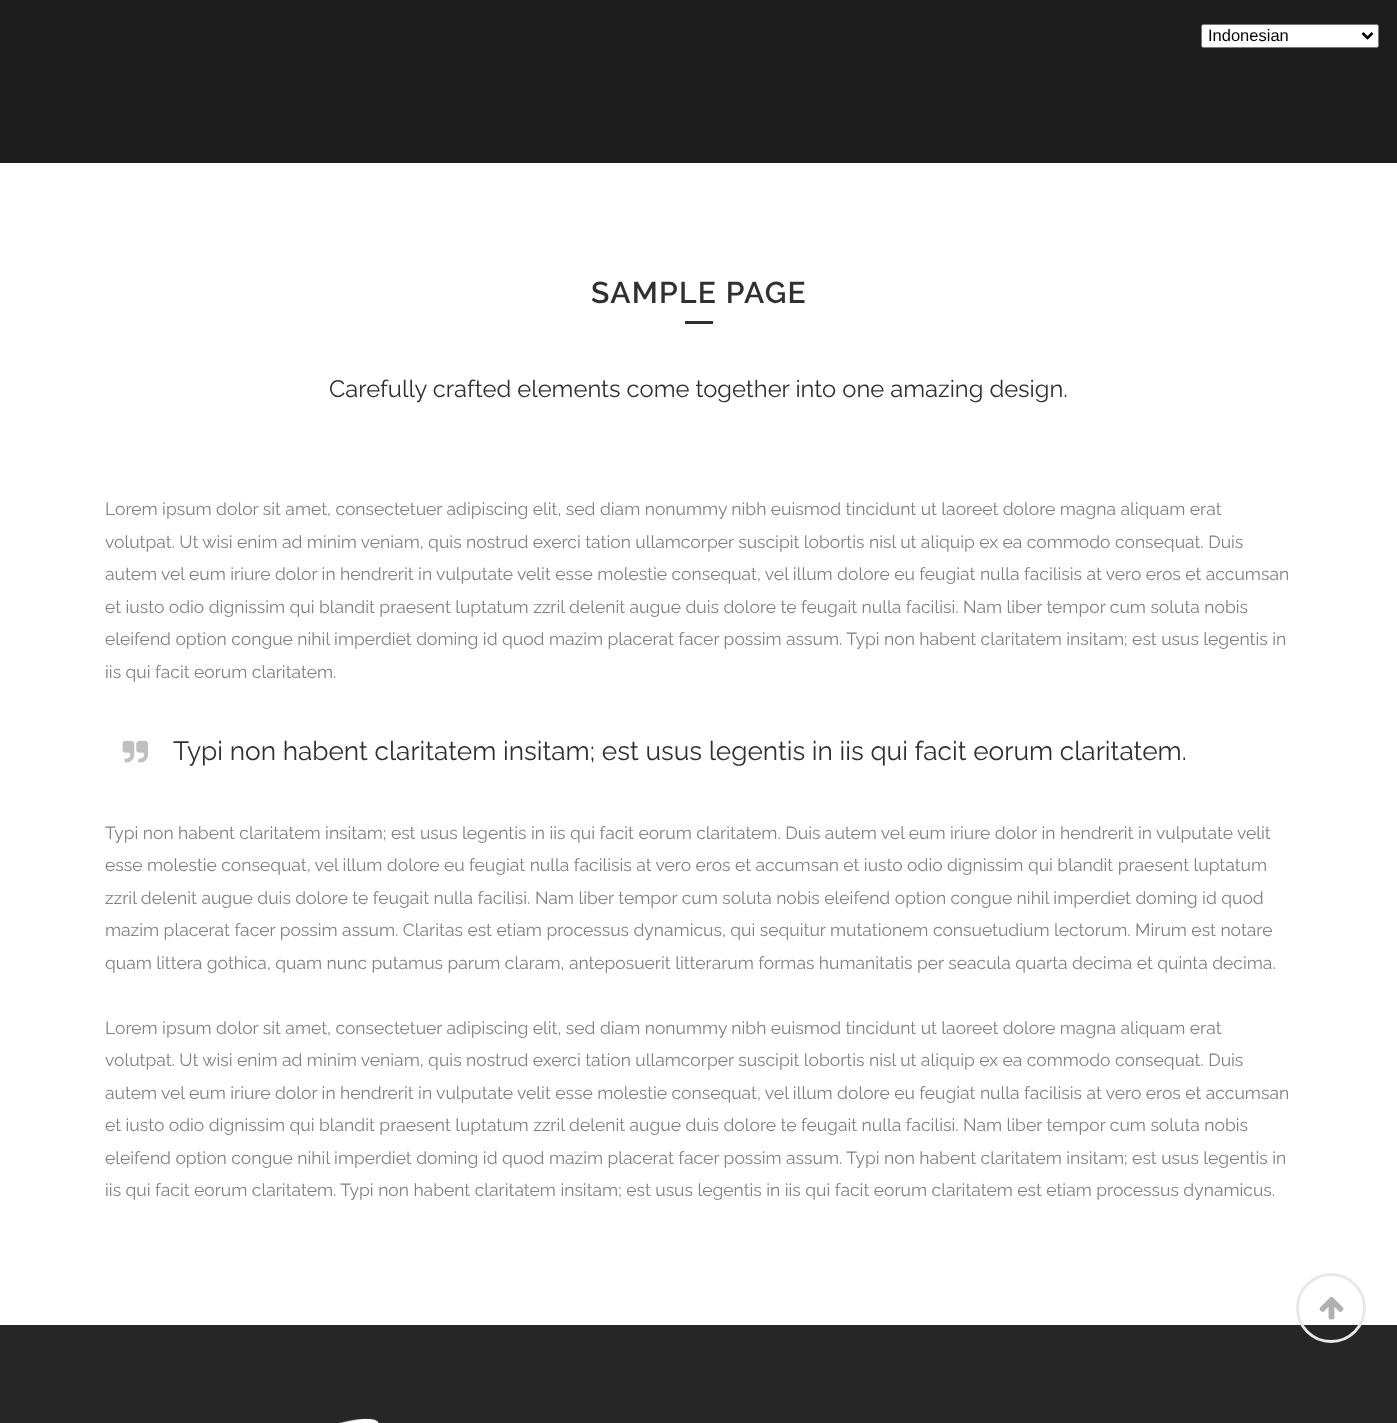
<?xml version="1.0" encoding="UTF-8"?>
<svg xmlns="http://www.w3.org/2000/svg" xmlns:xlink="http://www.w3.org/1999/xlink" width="1397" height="1423">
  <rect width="100%" height="100%" fill="#1c1c1c" />
  <rect x="1201.5" y="24.5" width="177" height="23" rx="2" fill="#ffffff" stroke="#767676" />
  <path d="M 1362.5 33 l 5 5 l 5 -5" fill="none" stroke="#000000" stroke-width="2.5" />
  <rect y="163" width="1397" height="1162" fill="#ffffff" />
  <rect x="685" y="321" width="28" height="3" fill="#303030" />
  <image x="122" y="740" width="26" height="23" xlink:href="image1.png" />
  <rect y="1325" width="1397" height="98" fill="#262626" />
  <circle cx="1331" cy="1308" r="33.5" fill="none" stroke="#e8e8e8" stroke-width="3" />
  <image x="1319" y="1296" width="25" height="24" xlink:href="image2.png" />
  <image x="337" y="1418" width="43" height="5" xlink:href="image3.png" />
  <text x="1208" y="41" style="font-family: Liberation Sans; font-size: 16.5px; fill: #000000">Indonesian</text>
  <text x="591" y="303" style="font-family: Raleway; font-size: 30px; font-weight: 600; letter-spacing: 1.25px; fill: #303030">SAMPLE PAGE</text>
  <text x="329" y="397" style="font-family: Raleway; font-size: 23.75px; fill: #303030">Carefully crafted elements come together into one amazing design.</text>
  <text x="105" y="515" style="font-family: Raleway; font-size: 17.5px; fill: #818181">Lorem ipsum dolor sit amet, consectetuer adipiscing elit, sed diam nonummy nibh euismod tincidunt ut laoreet dolore magna aliquam erat</text>
  <text x="105" y="548" style="font-family: Raleway; font-size: 17.5px; fill: #818181">volutpat. Ut wisi enim ad minim veniam, quis nostrud exerci tation ullamcorper suscipit lobortis nisl ut aliquip ex ea commodo consequat. Duis</text>
  <text x="105" y="580" style="font-family: Raleway; font-size: 17.5px; fill: #818181">autem vel eum iriure dolor in hendrerit in vulputate velit esse molestie consequat, vel illum dolore eu feugiat nulla facilisis at vero eros et accumsan</text>
  <text x="105" y="613" style="font-family: Raleway; font-size: 17.5px; fill: #818181">et iusto odio dignissim qui blandit praesent luptatum zzril delenit augue duis dolore te feugait nulla facilisi. Nam liber tempor cum soluta nobis</text>
  <text x="105" y="645" style="font-family: Raleway; font-size: 17.5px; fill: #818181">eleifend option congue nihil imperdiet doming id quod mazim placerat facer possim assum. Typi non habent claritatem insitam; est usus legentis in</text>
  <text x="105" y="678" style="font-family: Raleway; font-size: 17.5px; fill: #818181">iis qui facit eorum claritatem.</text>
  <text x="173" y="760" style="font-family: Raleway; font-size: 26.25px; fill: #303030">Typi non habent claritatem insitam; est usus legentis in iis qui facit eorum claritatem.</text>
  <text x="105" y="839" style="font-family: Raleway; font-size: 17.5px; fill: #818181">Typi non habent claritatem insitam; est usus legentis in iis qui facit eorum claritatem. Duis autem vel eum iriure dolor in hendrerit in vulputate velit</text>
  <text x="105" y="871" style="font-family: Raleway; font-size: 17.5px; fill: #818181">esse molestie consequat, vel illum dolore eu feugiat nulla facilisis at vero eros et accumsan et iusto odio dignissim qui blandit praesent luptatum</text>
  <text x="105" y="904" style="font-family: Raleway; font-size: 17.5px; fill: #818181">zzril delenit augue duis dolore te feugait nulla facilisi. Nam liber tempor cum soluta nobis eleifend option congue nihil imperdiet doming id quod</text>
  <text x="105" y="936" style="font-family: Raleway; font-size: 17.5px; fill: #818181">mazim placerat facer possim assum. Claritas est etiam processus dynamicus, qui sequitur mutationem consuetudium lectorum. Mirum est notare</text>
  <text x="105" y="969" style="font-family: Raleway; font-size: 17.5px; fill: #818181">quam littera gothica, quam nunc putamus parum claram, anteposuerit litterarum formas humanitatis per seacula quarta decima et quinta decima.</text>
  <text x="105" y="1034" style="font-family: Raleway; font-size: 17.5px; fill: #818181">Lorem ipsum dolor sit amet, consectetuer adipiscing elit, sed diam nonummy nibh euismod tincidunt ut laoreet dolore magna aliquam erat</text>
  <text x="105" y="1066" style="font-family: Raleway; font-size: 17.5px; fill: #818181">volutpat. Ut wisi enim ad minim veniam, quis nostrud exerci tation ullamcorper suscipit lobortis nisl ut aliquip ex ea commodo consequat. Duis</text>
  <text x="105" y="1099" style="font-family: Raleway; font-size: 17.5px; fill: #818181">autem vel eum iriure dolor in hendrerit in vulputate velit esse molestie consequat, vel illum dolore eu feugiat nulla facilisis at vero eros et accumsan</text>
  <text x="105" y="1131" style="font-family: Raleway; font-size: 17.5px; fill: #818181">et iusto odio dignissim qui blandit praesent luptatum zzril delenit augue duis dolore te feugait nulla facilisi. Nam liber tempor cum soluta nobis</text>
  <text x="105" y="1164" style="font-family: Raleway; font-size: 17.5px; fill: #818181">eleifend option congue nihil imperdiet doming id quod mazim placerat facer possim assum. Typi non habent claritatem insitam; est usus legentis in</text>
  <text x="105" y="1196" style="font-family: Raleway; font-size: 17.5px; fill: #818181">iis qui facit eorum claritatem. Typi non habent claritatem insitam; est usus legentis in iis qui facit eorum claritatem est etiam processus dynamicus.</text>
</svg>
